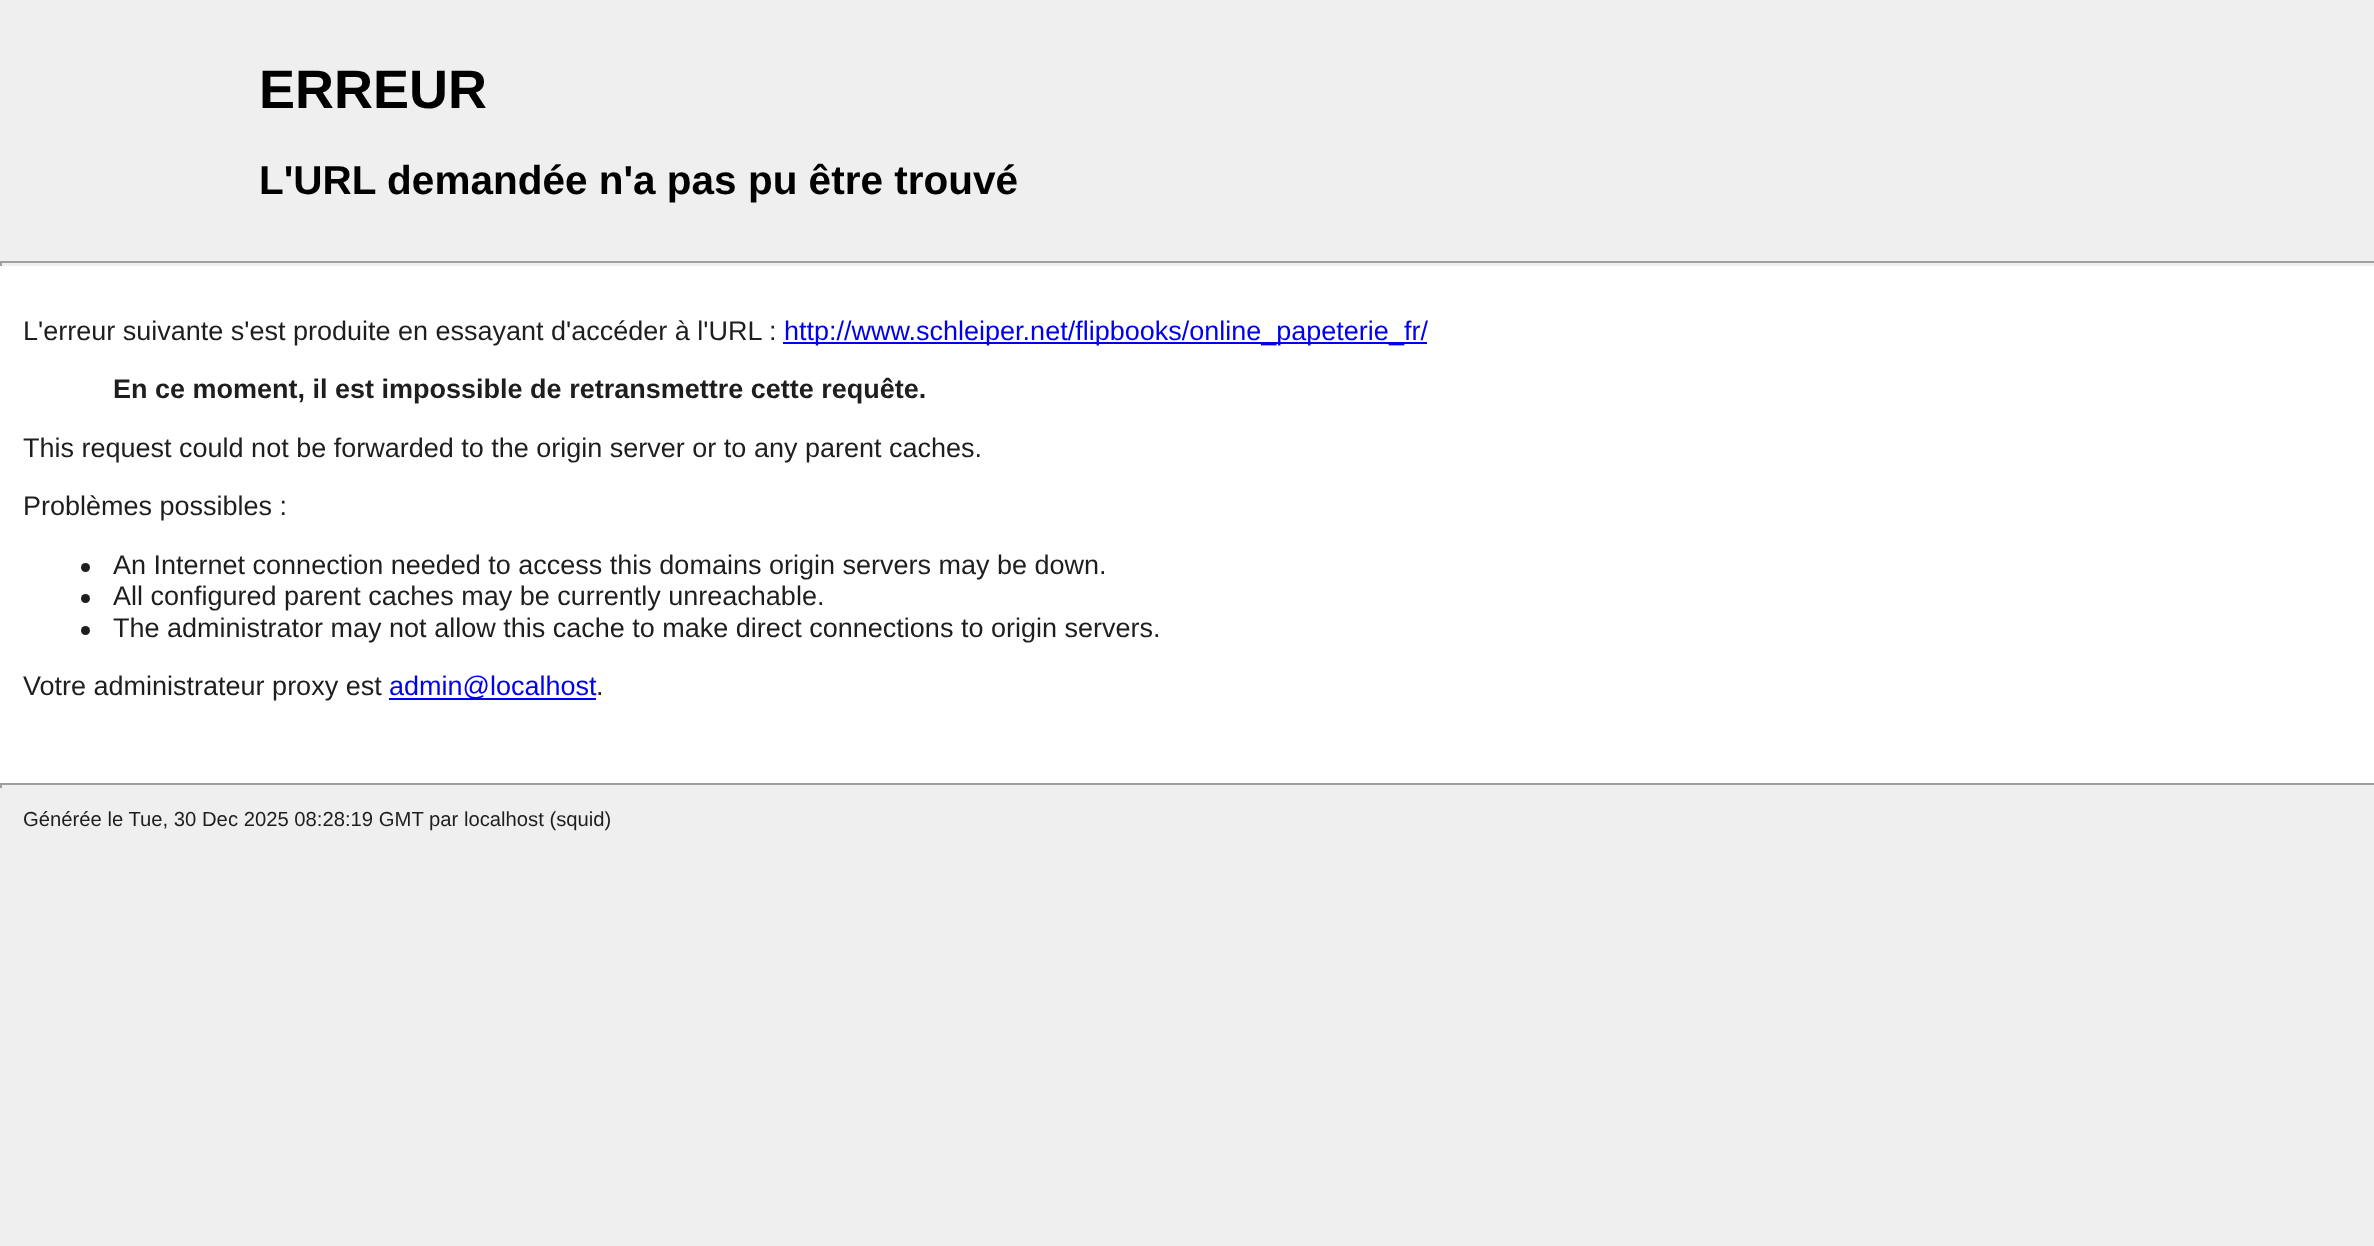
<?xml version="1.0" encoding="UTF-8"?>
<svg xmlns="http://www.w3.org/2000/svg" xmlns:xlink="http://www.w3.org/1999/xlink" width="2374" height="1246">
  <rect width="100%" height="100%" fill="#efefef" />
  <rect y="261" width="2374" height="2" fill="#9f9f9f" />
  <rect y="261" width="2" height="5" fill="#9f9f9f" />
  <rect y="266" width="2374" height="517" fill="#ffffff" />
  <rect x="783" y="342" width="644" height="2" fill="#0000ee" />
  <circle cx="85.5" cy="567.5" r="4.5" fill="#1e1e1e" />
  <circle cx="85.5" cy="598.5" r="4.5" fill="#1e1e1e" />
  <circle cx="85.5" cy="630.5" r="4.5" fill="#1e1e1e" />
  <rect x="389" y="698" width="207" height="2" fill="#0000ee" />
  <rect y="783" width="2374" height="2" fill="#9f9f9f" />
  <rect y="783" width="2" height="5" fill="#9f9f9f" />
  <text x="259" y="108" style="font-family: Liberation Sans; font-size: 54px; font-weight: bold; fill: #000000">ERREUR</text>
  <text x="259" y="194" style="font-family: Liberation Sans; font-size: 40.5px; font-weight: bold; fill: #000000">L'URL demandée n'a pas pu être trouvé</text>
  <text x="23" y="340" style="font-family: Liberation Sans; font-size: 27px; fill: #1e1e1e">L'erreur suivante s'est produite en essayant d'accéder à l'URL :</text>
  <text x="784" y="340" style="font-family: Liberation Sans; font-size: 27px; fill: #0000ee">http://www.schleiper.net/flipbooks/online_papeterie_fr/</text>
  <text x="113" y="398" style="font-family: Liberation Sans; font-size: 27px; font-weight: bold; fill: #1e1e1e">En ce moment, il est impossible de retransmettre cette requête.</text>
  <text x="23" y="457" style="font-family: Liberation Sans; font-size: 27px; fill: #1e1e1e">This request could not be forwarded to the origin server or to any parent caches.</text>
  <text x="23" y="515" style="font-family: Liberation Sans; font-size: 27px; fill: #1e1e1e">Problèmes possibles :</text>
  <text x="113" y="574" style="font-family: Liberation Sans; font-size: 27px; fill: #1e1e1e">An Internet connection needed to access this domains origin servers may be down.</text>
  <text x="113" y="605" style="font-family: Liberation Sans; font-size: 27px; fill: #1e1e1e">All configured parent caches may be currently unreachable.</text>
  <text x="113" y="637" style="font-family: Liberation Sans; font-size: 27px; fill: #1e1e1e">The administrator may not allow this cache to make direct connections to origin servers.</text>
  <text x="23" y="695" style="font-family: Liberation Sans; font-size: 27px; fill: #1e1e1e">Votre administrateur proxy est</text>
  <text x="389" y="695" style="font-family: Liberation Sans; font-size: 27px; fill: #0000ee">admin@localhost</text>
  <text x="596" y="695" style="font-family: Liberation Sans; font-size: 27px; fill: #1e1e1e">.</text>
  <text x="23" y="826" style="font-family: Liberation Sans; font-size: 20.25px; fill: #1e1e1e">Générée le Tue, 30 Dec 2025 08:28:19 GMT par localhost (squid)</text>
</svg>
